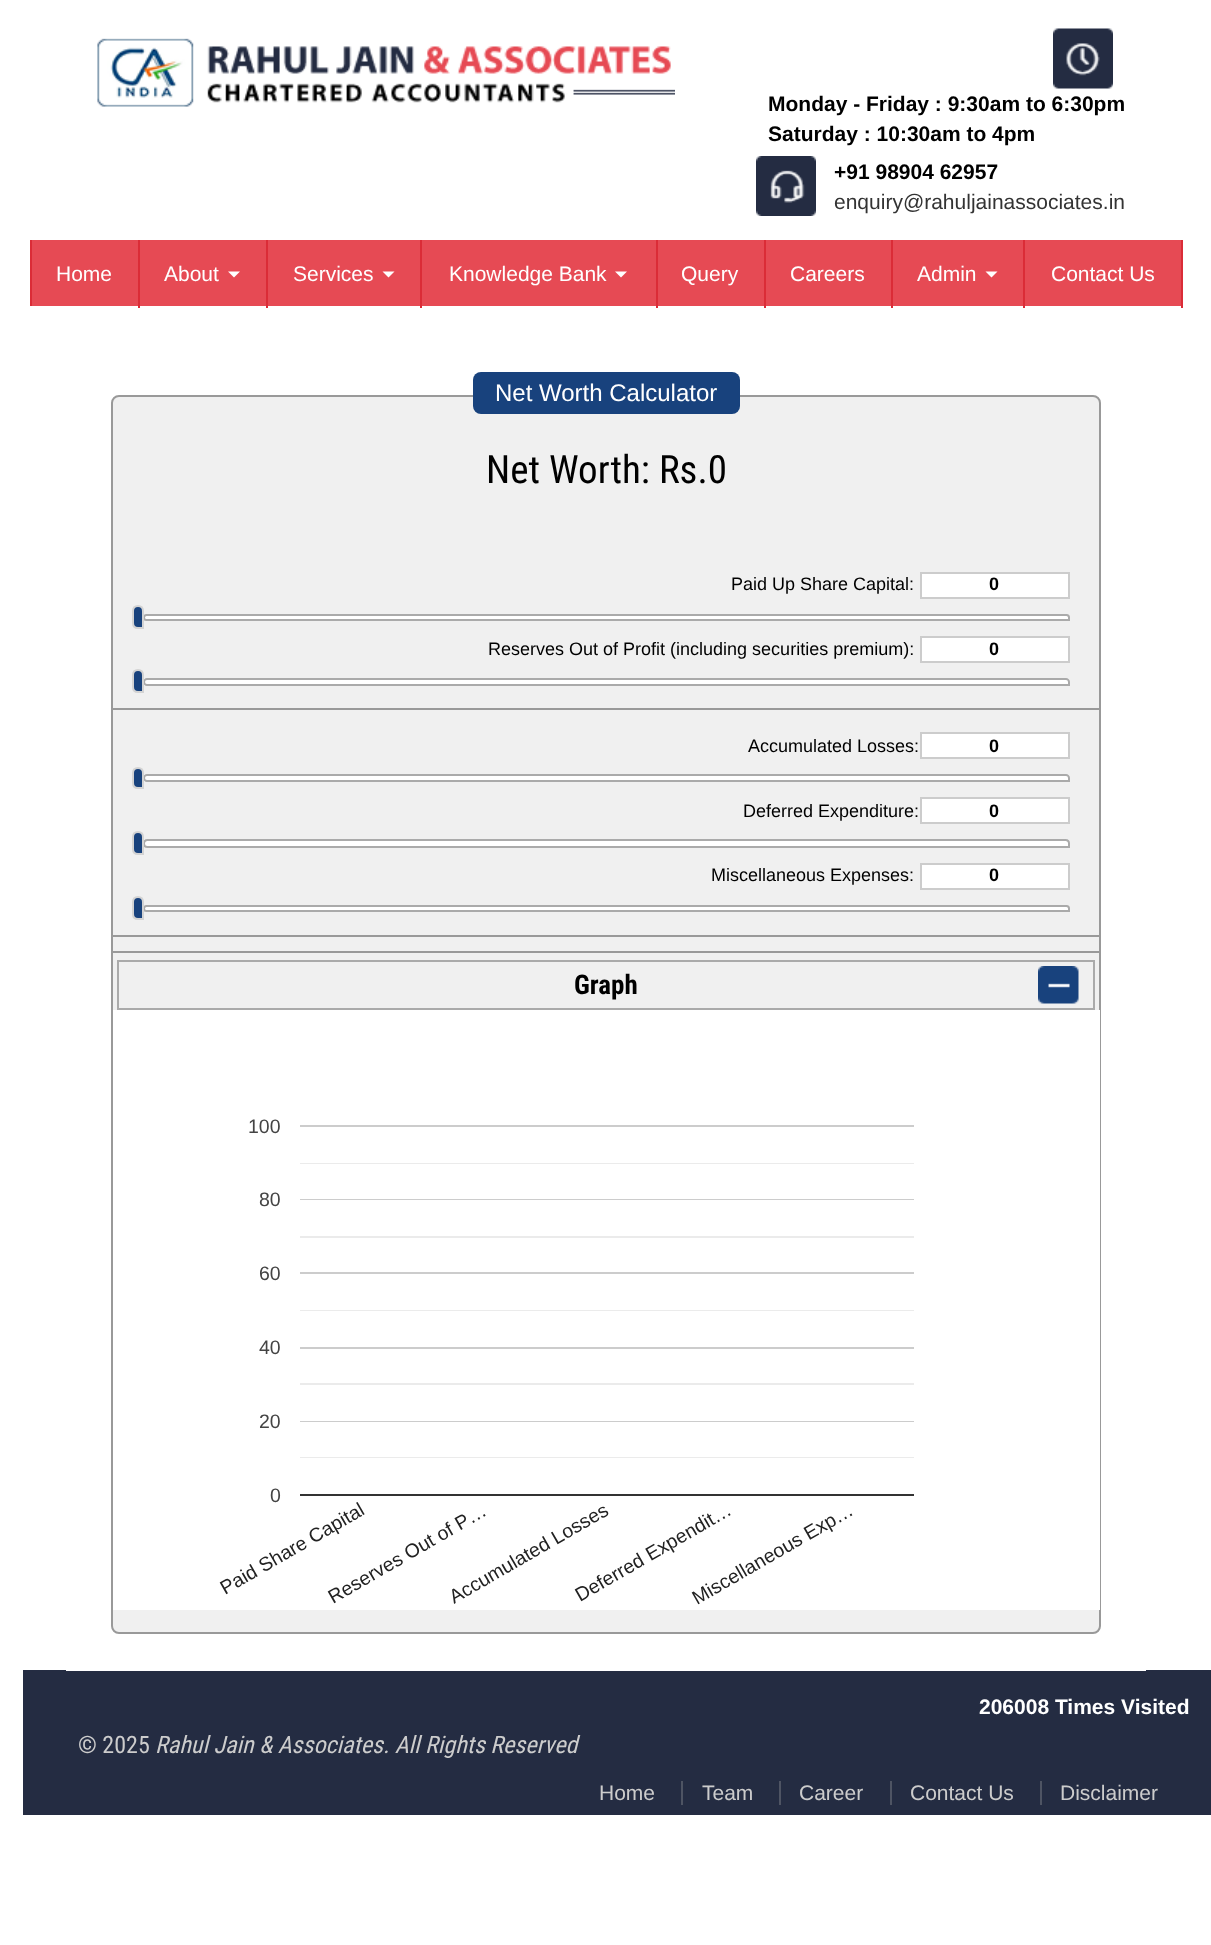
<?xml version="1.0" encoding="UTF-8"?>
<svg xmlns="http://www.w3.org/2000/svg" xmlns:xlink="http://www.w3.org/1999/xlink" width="1211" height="1945">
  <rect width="100%" height="100%" fill="#ffffff" />
  <image x="97" y="38" width="578" height="69" xlink:href="image1.png" />
  <image x="1053" y="28" width="60" height="61" xlink:href="image2.png" />
  <image x="756" y="156" width="60" height="60" xlink:href="image3.png" />
  <rect x="32" y="240" width="1149" height="66" fill="#e64a54" />
  <rect x="30" y="240" width="2" height="66" fill="#db2c37" />
  <rect x="138" y="240" width="2" height="68" fill="#db2c37" />
  <rect x="266" y="240" width="2" height="68" fill="#db2c37" />
  <path d="M 228 271.5 h 12 l -6 6 z" fill="#ffffff" />
  <rect x="420" y="240" width="2" height="68" fill="#db2c37" />
  <path d="M 382.5 271.5 h 12 l -6 6 z" fill="#ffffff" />
  <rect x="656" y="240" width="2" height="68" fill="#db2c37" />
  <path d="M 615 271.5 h 12 l -6 6 z" fill="#ffffff" />
  <rect x="764" y="240" width="2" height="68" fill="#db2c37" />
  <rect x="891" y="240" width="2" height="68" fill="#db2c37" />
  <rect x="1023" y="240" width="2" height="68" fill="#db2c37" />
  <path d="M 985.5 271.5 h 12 l -6 6 z" fill="#ffffff" />
  <rect x="1181" y="240" width="2" height="68" fill="#db2c37" />
  <rect x="23" y="1670" width="1188" height="145" fill="#242c42" />
  <rect x="66" y="1670" width="1080" height="1" fill="#ffffff" />
  <rect x="112" y="396" width="988" height="1237" rx="7" fill="#f0f0f0" stroke="#999999" stroke-width="2" />
  <rect x="473" y="372" width="267" height="42" rx="8" fill="#18427d" />
  <rect x="113" y="951" width="987" height="2" fill="#999999" />
  <rect x="113" y="708" width="987" height="2" fill="#999999" />
  <rect x="921" y="573" width="148" height="25" fill="#ffffff" stroke="#cccccc" stroke-width="2" />
  <path d="M 146.5 615 h 920 c 1.5 0 2.5 1 2.5 2.5 v 2.5 h -922.5 c -1.5 0 -2.5 -1 -2.5 -2.5 c 0 -1.5 1 -2.5 2.5 -2.5 z" fill="#ffffff" stroke="#aaaaaa" stroke-width="2" />
  <path d="M 138 606 c 3 0 5 2 5 5 v 17 h -5 c -3 0 -5 -2 -5 -5 v -12 c 0 -3 2 -5 5 -5 z" fill="#18427d" stroke="#d3d3d3" stroke-width="2" />
  <rect x="921" y="637" width="148" height="25" fill="#ffffff" stroke="#cccccc" stroke-width="2" />
  <path d="M 147 679 h 919 c 1.5 0 3 1.5 3 3 v 3 h -922 c -1.5 0 -3 -1.5 -3 -3 c 0 -1.5 1.5 -3 3 -3 z" fill="#ffffff" stroke="#aaaaaa" stroke-width="2" />
  <path d="M 138 670 c 3 0 5 2 5 5 v 17 h -5 c -3 0 -5 -2 -5 -5 v -12 c 0 -3 2 -5 5 -5 z" fill="#18427d" stroke="#d3d3d3" stroke-width="2" />
  <rect x="113" y="935" width="987" height="2" fill="#999999" />
  <rect x="921" y="733" width="148" height="25" fill="#ffffff" stroke="#cccccc" stroke-width="2" />
  <path d="M 147 775 h 919 c 1.5 0 3 1.5 3 3 v 3 h -922 c -1.5 0 -3 -1.5 -3 -3 c 0 -1.5 1.5 -3 3 -3 z" fill="#ffffff" stroke="#aaaaaa" stroke-width="2" />
  <path d="M 138 768 c 3 0 5 2 5 5 v 15 h -5 c -3 0 -5 -2 -5 -5 v -10 c 0 -3 2 -5 5 -5 z" fill="#18427d" stroke="#d3d3d3" stroke-width="2" />
  <rect x="921" y="798" width="148" height="25" fill="#ffffff" stroke="#cccccc" stroke-width="2" />
  <path d="M 147.5 840 h 918 c 2 0 3.5 1.5 3.5 3.5 v 3.5 h -921.5 c -2 0 -3.5 -1.5 -3.5 -3.5 c 0 -2 1.5 -3.5 3.5 -3.5 z" fill="#ffffff" stroke="#aaaaaa" stroke-width="2" />
  <path d="M 138 832 c 3 0 5 2 5 5 v 17 h -5 c -3 0 -5 -2 -5 -5 v -12 c 0 -3 2 -5 5 -5 z" fill="#18427d" stroke="#d3d3d3" stroke-width="2" />
  <rect x="921" y="864" width="148" height="25" fill="#ffffff" stroke="#cccccc" stroke-width="2" />
  <path d="M 146.5 906 h 920 c 1.5 0 2.5 1 2.5 2.5 v 2.5 h -922.5 c -1.5 0 -2.5 -1 -2.5 -2.5 c 0 -1.5 1 -2.5 2.5 -2.5 z" fill="#ffffff" stroke="#aaaaaa" stroke-width="2" />
  <path d="M 138 897 c 3 0 5 2 5 5 v 17 h -5 c -3 0 -5 -2 -5 -5 v -12 c 0 -3 2 -5 5 -5 z" fill="#18427d" stroke="#d3d3d3" stroke-width="2" />
  <image x="1038" y="966" width="41" height="38" xlink:href="image4.png" />
  <rect x="118" y="961" width="976" height="48" fill="none" stroke="#aaaaaa" stroke-width="2" />
  <rect x="113" y="1010" width="987" height="600" fill="#ffffff" />
  <rect x="300" y="1125" width="614" height="2" fill="#cccccc" />
  <rect x="300" y="1199" width="614" height="1" fill="#cccccc" />
  <rect x="300" y="1163" width="614" height="1" fill="#ebebeb" />
  <rect x="300" y="1272" width="614" height="2" fill="#cccccc" />
  <rect x="300" y="1236" width="614" height="2" fill="#ebebeb" />
  <rect x="300" y="1347" width="614" height="2" fill="#cccccc" />
  <rect x="300" y="1383" width="614" height="2" fill="#ebebeb" />
  <rect x="300" y="1310" width="614" height="1" fill="#ebebeb" />
  <rect x="300" y="1421" width="614" height="1" fill="#cccccc" />
  <rect x="300" y="1457" width="614" height="1" fill="#ebebeb" />
  <rect x="300" y="1494" width="614" height="2" fill="#333333" />
  <rect x="681" y="1781" width="2" height="24" fill="#4e5463" />
  <rect x="779" y="1781" width="2" height="24" fill="#4e5463" />
  <rect x="890" y="1781" width="2" height="24" fill="#4e5463" />
  <rect x="1040" y="1781" width="2" height="24" fill="#4e5463" />
  <text x="768" y="111" style="font-family: Liberation Sans; font-size: 21px; font-weight: bold; fill: #000000">Monday - Friday : 9:30am to 6:30pm</text>
  <text x="768" y="141" style="font-family: Liberation Sans; font-size: 21px; font-weight: bold; fill: #000000">Saturday : 10:30am to 4pm</text>
  <text x="834" y="179" style="font-family: Liberation Sans; font-size: 21px; font-weight: bold; fill: #000000">+91 98904 62957</text>
  <text x="834" y="209" style="font-family: Liberation Sans; font-size: 21px; fill: #333333">enquiry@rahuljainassociates.in</text>
  <text x="56" y="281" style="font-family: Liberation Sans; font-size: 21px; fill: #ffffff">Home</text>
  <text x="164" y="281" style="font-family: Liberation Sans; font-size: 21px; fill: #ffffff">About</text>
  <text x="293" y="281" style="font-family: Liberation Sans; font-size: 21px; fill: #ffffff">Services</text>
  <text x="449" y="281" style="font-family: Liberation Sans; font-size: 21px; fill: #ffffff">Knowledge Bank</text>
  <text x="681" y="281" style="font-family: Liberation Sans; font-size: 21px; fill: #ffffff">Query</text>
  <text x="790" y="281" style="font-family: Liberation Sans; font-size: 21px; fill: #ffffff">Careers</text>
  <text x="917" y="281" style="font-family: Liberation Sans; font-size: 21px; fill: #ffffff">Admin</text>
  <text x="1051" y="281" style="font-family: Liberation Sans; font-size: 21px; fill: #ffffff">Contact Us</text>
  <text x="495" y="401" style="font-family: Liberation Sans; font-size: 24px; fill: #ffffff">Net Worth Calculator</text>
  <text x="486" y="483" style="font-family: Roboto Condensed; font-size: 39px; fill: #000000">Net Worth: Rs.0</text>
  <text x="731" y="590" style="font-family: Liberation Sans; font-size: 18px; fill: #000000">Paid Up Share Capital:</text>
  <text x="989" y="590" style="font-family: Liberation Sans; font-size: 18px; font-weight: bold; fill: #000000">0</text>
  <text x="488" y="655" style="font-family: Liberation Sans; font-size: 18px; fill: #000000">Reserves Out of Profit (including securities premium):</text>
  <text x="989" y="655" style="font-family: Liberation Sans; font-size: 18px; font-weight: bold; fill: #000000">0</text>
  <text x="748" y="752" style="font-family: Liberation Sans; font-size: 18px; fill: #000000">Accumulated Losses:</text>
  <text x="989" y="752" style="font-family: Liberation Sans; font-size: 18px; font-weight: bold; fill: #000000">0</text>
  <text x="743" y="817" style="font-family: Liberation Sans; font-size: 18px; fill: #000000">Deferred Expenditure:</text>
  <text x="989" y="817" style="font-family: Liberation Sans; font-size: 18px; font-weight: bold; fill: #000000">0</text>
  <text x="711" y="881" style="font-family: Liberation Sans; font-size: 18px; fill: #000000">Miscellaneous Expenses:</text>
  <text x="989" y="881" style="font-family: Liberation Sans; font-size: 18px; font-weight: bold; fill: #000000">0</text>
  <text x="574" y="994" style="font-family: Roboto Condensed; font-size: 27px; font-weight: bold; fill: #000000">Graph</text>
  <text x="248" y="1133" style="font-family: Liberation Sans; font-size: 19.5px; fill: #444444">100</text>
  <text x="259" y="1206" style="font-family: Liberation Sans; font-size: 19.5px; fill: #444444">80</text>
  <text x="259" y="1280" style="font-family: Liberation Sans; font-size: 19.5px; fill: #444444">60</text>
  <text x="259" y="1354" style="font-family: Liberation Sans; font-size: 19.5px; fill: #444444">40</text>
  <text x="259" y="1428" style="font-family: Liberation Sans; font-size: 19.5px; fill: #444444">20</text>
  <text x="270" y="1502" style="font-family: Liberation Sans; font-size: 19.5px; fill: #444444">0</text>
  <text x="225" y="1595" transform="rotate(-30 225 1595)" style="font-family: Liberation Sans; font-size: 19.5px; fill: #222222">Paid Share Capital</text>
  <text x="333" y="1604" transform="rotate(-30 333 1604)" style="font-family: Liberation Sans; font-size: 19.5px; fill: #222222">Reserves Out of P…</text>
  <text x="454" y="1604" transform="rotate(-30 454 1604)" style="font-family: Liberation Sans; font-size: 19.5px; fill: #222222">Accumulated Losses</text>
  <text x="580" y="1602" transform="rotate(-30 580 1602)" style="font-family: Liberation Sans; font-size: 19.5px; fill: #222222">Deferred Expendit…</text>
  <text x="697" y="1605" transform="rotate(-30 697 1605)" style="font-family: Liberation Sans; font-size: 19.5px; fill: #222222">Miscellaneous Exp…</text>
  <text x="979" y="1714" style="font-family: Liberation Sans; font-size: 21px; font-weight: bold; fill: #ffffff">206008 Times Visited</text>
  <text x="78" y="1753" style="font-family: Roboto Condensed; font-size: 24px; fill: #cccccc">© 2025</text>
  <text x="155" y="1753" style="font-family: Roboto Condensed; font-size: 24px; font-style: italic; fill: #cccccc">Rahul Jain &amp; Associates. All Rights Reserved</text>
  <text x="599" y="1800" style="font-family: Liberation Sans; font-size: 21px; fill: #cccccc">Home</text>
  <text x="702" y="1800" style="font-family: Liberation Sans; font-size: 21px; fill: #cccccc">Team</text>
  <text x="799" y="1800" style="font-family: Liberation Sans; font-size: 21px; fill: #cccccc">Career</text>
  <text x="910" y="1800" style="font-family: Liberation Sans; font-size: 21px; fill: #cccccc">Contact Us</text>
  <text x="1060" y="1800" style="font-family: Liberation Sans; font-size: 21px; fill: #cccccc">Disclaimer</text>
</svg>
